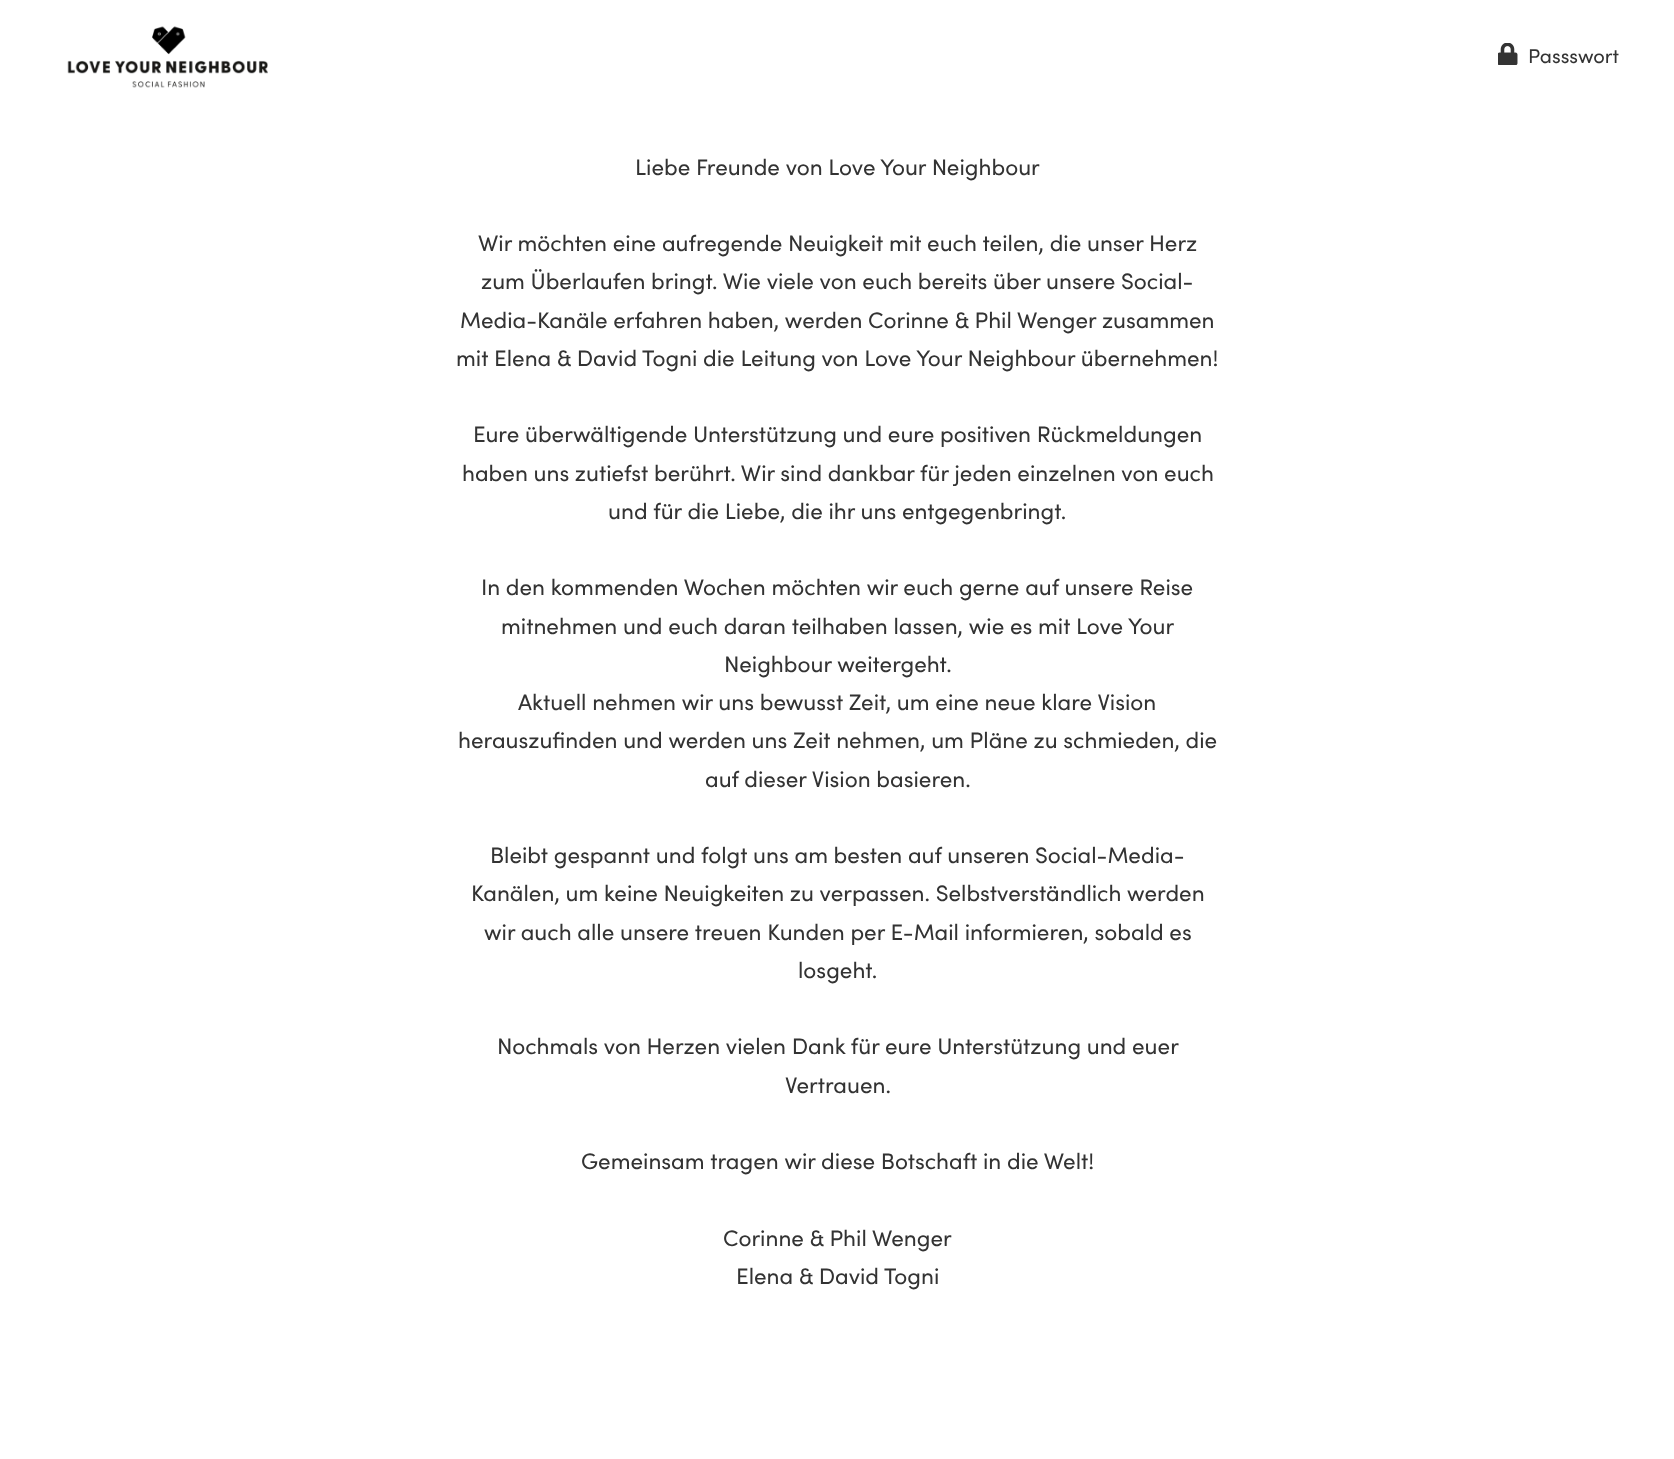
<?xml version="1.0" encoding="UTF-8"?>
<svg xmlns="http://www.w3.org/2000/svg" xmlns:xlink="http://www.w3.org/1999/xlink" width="1674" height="1459">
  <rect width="100%" height="100%" fill="#ffffff" />
  <image x="67" y="26" width="201" height="62" xlink:href="image1.png" />
  <image x="1498" y="43" width="20" height="22" xlink:href="image2.png" />
  <text x="1528" y="63" style="font-family: Sofia; font-size: 20px; fill: #333333">Passswort</text>
  <text x="635" y="175" style="font-family: Sofia; font-size: 22.5px; fill: #333333">Liebe Freunde von Love Your Neighbour</text>
  <text x="478" y="251" style="font-family: Sofia; font-size: 22.5px; fill: #333333">Wir möchten eine aufregende Neuigkeit mit euch teilen, die unser Herz</text>
  <text x="481" y="289" style="font-family: Sofia; font-size: 22.5px; fill: #333333">zum Überlaufen bringt. Wie viele von euch bereits über unsere Social-</text>
  <text x="460" y="328" style="font-family: Sofia; font-size: 22.5px; fill: #333333">Media-Kanäle erfahren haben, werden Corinne &amp; Phil Wenger zusammen</text>
  <text x="456" y="366" style="font-family: Sofia; font-size: 22.5px; fill: #333333">mit Elena &amp; David Togni die Leitung von Love Your Neighbour übernehmen!</text>
  <text x="473" y="442" style="font-family: Sofia; font-size: 22.5px; fill: #333333">Eure überwältigende Unterstützung und eure positiven Rückmeldungen</text>
  <text x="462" y="481" style="font-family: Sofia; font-size: 22.5px; fill: #333333">haben uns zutiefst berührt. Wir sind dankbar für jeden einzelnen von euch</text>
  <text x="608" y="519" style="font-family: Sofia; font-size: 22.5px; fill: #333333">und für die Liebe, die ihr uns entgegenbringt.</text>
  <text x="481" y="595" style="font-family: Sofia; font-size: 22.5px; fill: #333333">In den kommenden Wochen möchten wir euch gerne auf unsere Reise</text>
  <text x="501" y="634" style="font-family: Sofia; font-size: 22.5px; fill: #333333">mitnehmen und euch daran teilhaben lassen, wie es mit Love Your</text>
  <text x="724" y="672" style="font-family: Sofia; font-size: 22.5px; fill: #333333">Neighbour weitergeht.</text>
  <text x="518" y="710" style="font-family: Sofia; font-size: 22.5px; fill: #333333">Aktuell nehmen wir uns bewusst Zeit, um eine neue klare Vision</text>
  <text x="458" y="748" style="font-family: Sofia; font-size: 22.5px; fill: #333333">herauszufinden und werden uns Zeit nehmen, um Pläne zu schmieden, die</text>
  <text x="705" y="787" style="font-family: Sofia; font-size: 22.5px; fill: #333333">auf dieser Vision basieren.</text>
  <text x="490" y="863" style="font-family: Sofia; font-size: 22.5px; fill: #333333">Bleibt gespannt und folgt uns am besten auf unseren Social-Media-</text>
  <text x="471" y="901" style="font-family: Sofia; font-size: 22.5px; fill: #333333">Kanälen, um keine Neuigkeiten zu verpassen. Selbstverständlich werden</text>
  <text x="484" y="940" style="font-family: Sofia; font-size: 22.5px; fill: #333333">wir auch alle unsere treuen Kunden per E-Mail informieren, sobald es</text>
  <text x="798" y="978" style="font-family: Sofia; font-size: 22.5px; fill: #333333">losgeht.</text>
  <text x="497" y="1054" style="font-family: Sofia; font-size: 22.5px; fill: #333333">Nochmals von Herzen vielen Dank für eure Unterstützung und euer</text>
  <text x="785" y="1093" style="font-family: Sofia; font-size: 22.5px; fill: #333333">Vertrauen.</text>
  <text x="581" y="1169" style="font-family: Sofia; font-size: 22.5px; fill: #333333">Gemeinsam tragen wir diese Botschaft in die Welt!</text>
  <text x="723" y="1246" style="font-family: Sofia; font-size: 22.5px; fill: #333333">Corinne &amp; Phil Wenger</text>
  <text x="736" y="1284" style="font-family: Sofia; font-size: 22.5px; fill: #333333">Elena &amp; David Togni</text>
</svg>
